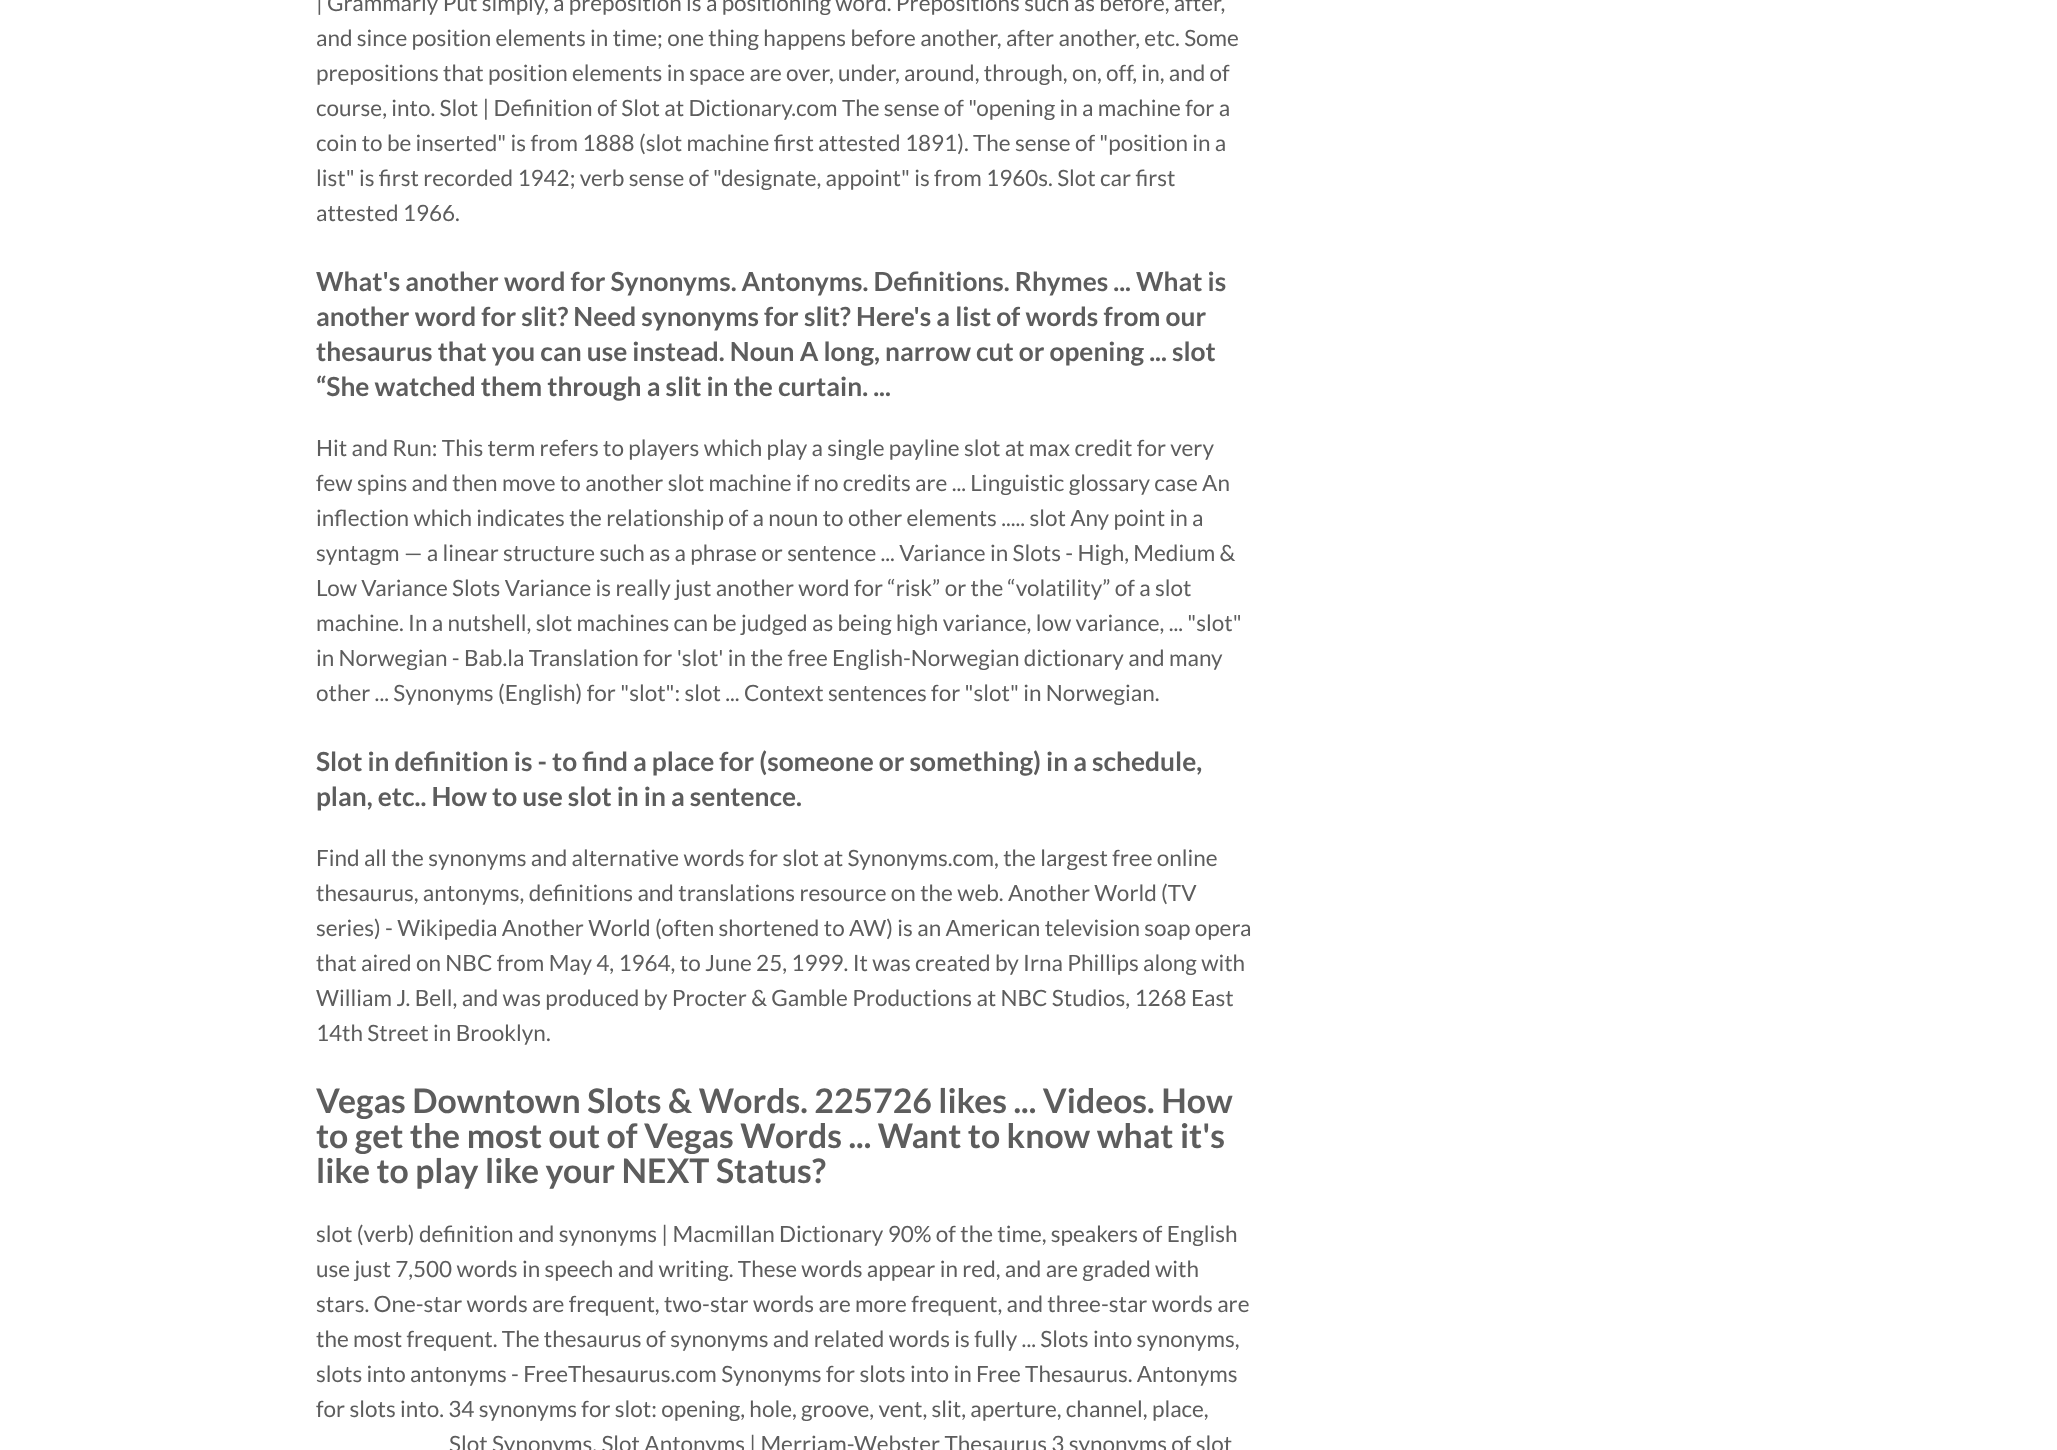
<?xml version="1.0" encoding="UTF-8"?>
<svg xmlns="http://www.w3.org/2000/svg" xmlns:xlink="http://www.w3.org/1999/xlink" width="2057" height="1450">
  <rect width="100%" height="100%" fill="#ffffff" />
  <text x="316" y="11" style="font-family: Lato; font-size: 22.5px; fill: #5d5d5d">| Grammarly Put simply, a preposition is a positioning word. Prepositions such as before, after,</text>
  <text x="316" y="46" style="font-family: Lato; font-size: 22.5px; fill: #5d5d5d">and since position elements in time; one thing happens before another, after another, etc. Some</text>
  <text x="316" y="81" style="font-family: Lato; font-size: 22.5px; fill: #5d5d5d">prepositions that position elements in space are over, under, around, through, on, off, in, and of</text>
  <text x="316" y="116" style="font-family: Lato; font-size: 22.5px; fill: #5d5d5d">course, into. Slot | Definition of Slot at Dictionary.com The sense of "opening in a machine for a</text>
  <text x="316" y="151" style="font-family: Lato; font-size: 22.5px; fill: #5d5d5d">coin to be inserted" is from 1888 (slot machine first attested 1891). The sense of "position in a</text>
  <text x="316" y="186" style="font-family: Lato; font-size: 22.5px; fill: #5d5d5d">list" is first recorded 1942; verb sense of "designate, appoint" is from 1960s. Slot car first</text>
  <text x="316" y="221" style="font-family: Lato; font-size: 22.5px; fill: #5d5d5d">attested 1966.</text>
  <text x="316" y="291" style="font-family: Lato; font-size: 26.3px; font-weight: bold; fill: #5d5d5d">What's another word for Synonyms. Antonyms. Definitions. Rhymes ... What is</text>
  <text x="316" y="326" style="font-family: Lato; font-size: 26.3px; font-weight: bold; fill: #5d5d5d">another word for slit? Need synonyms for slit? Here's a list of words from our</text>
  <text x="316" y="361" style="font-family: Lato; font-size: 26.3px; font-weight: bold; fill: #5d5d5d">thesaurus that you can use instead. Noun A long, narrow cut or opening ... slot</text>
  <text x="316" y="396" style="font-family: Lato; font-size: 26.3px; font-weight: bold; fill: #5d5d5d">“She watched them through a slit in the curtain. ...</text>
  <text x="316" y="456" style="font-family: Lato; font-size: 22.5px; fill: #5d5d5d">Hit and Run: This term refers to players which play a single payline slot at max credit for very</text>
  <text x="316" y="491" style="font-family: Lato; font-size: 22.5px; fill: #5d5d5d">few spins and then move to another slot machine if no credits are ... Linguistic glossary case An</text>
  <text x="316" y="526" style="font-family: Lato; font-size: 22.5px; fill: #5d5d5d">inflection which indicates the relationship of a noun to other elements ..... slot Any point in a</text>
  <text x="316" y="561" style="font-family: Lato; font-size: 22.5px; fill: #5d5d5d">syntagm — a linear structure such as a phrase or sentence ... Variance in Slots - High, Medium &amp;</text>
  <text x="316" y="596" style="font-family: Lato; font-size: 22.5px; fill: #5d5d5d">Low Variance Slots Variance is really just another word for “risk” or the “volatility” of a slot</text>
  <text x="316" y="631" style="font-family: Lato; font-size: 22.5px; fill: #5d5d5d">machine. In a nutshell, slot machines can be judged as being high variance, low variance, ... "slot"</text>
  <text x="316" y="666" style="font-family: Lato; font-size: 22.5px; fill: #5d5d5d">in Norwegian - Bab.la Translation for 'slot' in the free English-Norwegian dictionary and many</text>
  <text x="316" y="701" style="font-family: Lato; font-size: 22.5px; fill: #5d5d5d">other ... Synonyms (English) for "slot": slot ... Context sentences for "slot" in Norwegian.</text>
  <text x="316" y="771" style="font-family: Lato; font-size: 26.3px; font-weight: bold; fill: #5d5d5d">Slot in definition is - to find a place for (someone or something) in a schedule,</text>
  <text x="316" y="806" style="font-family: Lato; font-size: 26.3px; font-weight: bold; fill: #5d5d5d">plan, etc.. How to use slot in in a sentence.</text>
  <text x="316" y="866" style="font-family: Lato; font-size: 22.5px; fill: #5d5d5d">Find all the synonyms and alternative words for slot at Synonyms.com, the largest free online</text>
  <text x="316" y="901" style="font-family: Lato; font-size: 22.5px; fill: #5d5d5d">thesaurus, antonyms, definitions and translations resource on the web. Another World (TV</text>
  <text x="316" y="936" style="font-family: Lato; font-size: 22.5px; fill: #5d5d5d">series) - Wikipedia Another World (often shortened to AW) is an American television soap opera</text>
  <text x="316" y="971" style="font-family: Lato; font-size: 22.5px; fill: #5d5d5d">that aired on NBC from May 4, 1964, to June 25, 1999. It was created by Irna Phillips along with</text>
  <text x="316" y="1006" style="font-family: Lato; font-size: 22.5px; fill: #5d5d5d">William J. Bell, and was produced by Procter &amp; Gamble Productions at NBC Studios, 1268 East</text>
  <text x="316" y="1041" style="font-family: Lato; font-size: 22.5px; fill: #5d5d5d">14th Street in Brooklyn.</text>
  <text x="316" y="1113" style="font-family: Lato; font-size: 33.75px; font-weight: bold; fill: #5d5d5d">Vegas Downtown Slots &amp; Words. 225726 likes ... Videos. How</text>
  <text x="316" y="1148" style="font-family: Lato; font-size: 33.75px; font-weight: bold; fill: #5d5d5d">to get the most out of Vegas Words ... Want to know what it's</text>
  <text x="316" y="1183" style="font-family: Lato; font-size: 33.75px; font-weight: bold; fill: #5d5d5d">like to play like your NEXT Status?</text>
  <text x="316" y="1242" style="font-family: Lato; font-size: 22.5px; fill: #5d5d5d">slot (verb) definition and synonyms | Macmillan Dictionary 90% of the time, speakers of English</text>
  <text x="316" y="1277" style="font-family: Lato; font-size: 22.5px; fill: #5d5d5d">use just 7,500 words in speech and writing. These words appear in red, and are graded with</text>
  <text x="316" y="1312" style="font-family: Lato; font-size: 22.5px; fill: #5d5d5d">stars. One-star words are frequent, two-star words are more frequent, and three-star words are</text>
  <text x="316" y="1347" style="font-family: Lato; font-size: 22.5px; fill: #5d5d5d">the most frequent. The thesaurus of synonyms and related words is fully ... Slots into synonyms,</text>
  <text x="316" y="1382" style="font-family: Lato; font-size: 22.5px; fill: #5d5d5d">slots into antonyms - FreeThesaurus.com Synonyms for slots into in Free Thesaurus. Antonyms</text>
  <text x="316" y="1417" style="font-family: Lato; font-size: 22.5px; fill: #5d5d5d">for slots into. 34 synonyms for slot: opening, hole, groove, vent, slit, aperture, channel, place,</text>
  <text x="449" y="1452" style="font-family: Lato; font-size: 22.5px; fill: #5d5d5d">Slot Synonyms, Slot Antonyms | Merriam-Webster Thesaurus 3 synonyms of slot</text>
</svg>
